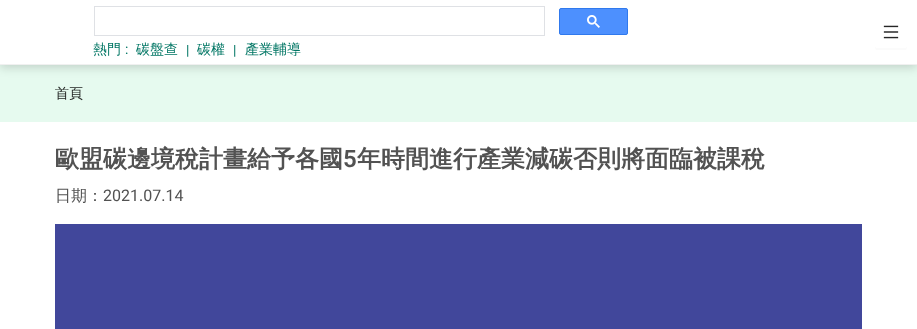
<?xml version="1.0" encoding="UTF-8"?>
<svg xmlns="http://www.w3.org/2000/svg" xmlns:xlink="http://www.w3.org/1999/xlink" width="917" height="329">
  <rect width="100%" height="100%" fill="#e6faef" />
  <rect y="3" width="917" height="65" fill="#000000" fill-opacity="0.15" filter="blur(5px)" />
  <rect width="917" height="64" fill="#ffffff" />
  <rect y="64" width="917" height="1" fill="#f0f0f0" />
  <rect x="94.5" y="6.5" width="450" height="29" fill="none" stroke="#dfe1e5" />
  <rect x="559.5" y="8.5" width="68" height="26" rx="1.5" fill="#4d90fe" stroke="#3079ed" />
  <image x="587" y="15" width="13" height="13" xlink:href="image1.png" />
  <path d="M 875 46 c 0 5 1.5 4 6.5 4 h 19 c 5 0 6.5 1 6.5 -4 c 0 1 -1 2 -2 2 h -28 c -1 0 -2 -1 -2 -2 z" fill="#fbfbfb" />
  <image x="883" y="25" width="16" height="14" xlink:href="image2.png" />
  <rect y="122" width="917" height="207" fill="#ffffff" />
  <rect x="55" y="224" width="807" height="105" fill="#41479b" />
  <text x="93" y="54" style="font-family: WenQuanYi Zen Hei; font-size: 14px; font-weight: 500; fill: #007664">熱門</text>
  <text x="125" y="54" style="font-family: Roboto; font-size: 14px; fill: #007664">:</text>
  <text x="136" y="54" style="font-family: WenQuanYi Zen Hei; font-size: 14px; font-weight: 500; fill: #007664">碳盤查</text>
  <text x="186" y="55" style="font-family: Roboto; font-size: 14px; fill: #007664">|</text>
  <text x="197" y="54" style="font-family: WenQuanYi Zen Hei; font-size: 14px; font-weight: 500; fill: #007664">碳權</text>
  <text x="233" y="55" style="font-family: Roboto; font-size: 14px; fill: #007664">|</text>
  <text x="245" y="54" style="font-family: WenQuanYi Zen Hei; font-size: 14px; font-weight: 500; fill: #007664">產業輔導</text>
  <text x="55" y="98" style="font-family: WenQuanYi Zen Hei; font-size: 14px; font-weight: 500; fill: #232624">首頁</text>
  <text x="55" y="167" style="font-family: WenQuanYi Zen Hei; font-size: 24px; font-weight: bold; fill: #525252">歐盟碳邊境稅計畫給予各國</text>
  <text x="343" y="167" style="font-family: Roboto; font-size: 24px; font-weight: 600; fill: #525252">5</text>
  <text x="357" y="167" style="font-family: WenQuanYi Zen Hei; font-size: 24px; font-weight: bold; fill: #525252">年時間進行產業減碳否則將面臨被課稅</text>
  <text x="55" y="201" style="font-family: WenQuanYi Zen Hei; font-size: 16px; font-weight: 500; fill: #525252">日期：</text>
  <text x="103" y="201" style="font-family: Roboto; font-size: 16px; fill: #525252">2021.07.14</text>
</svg>
